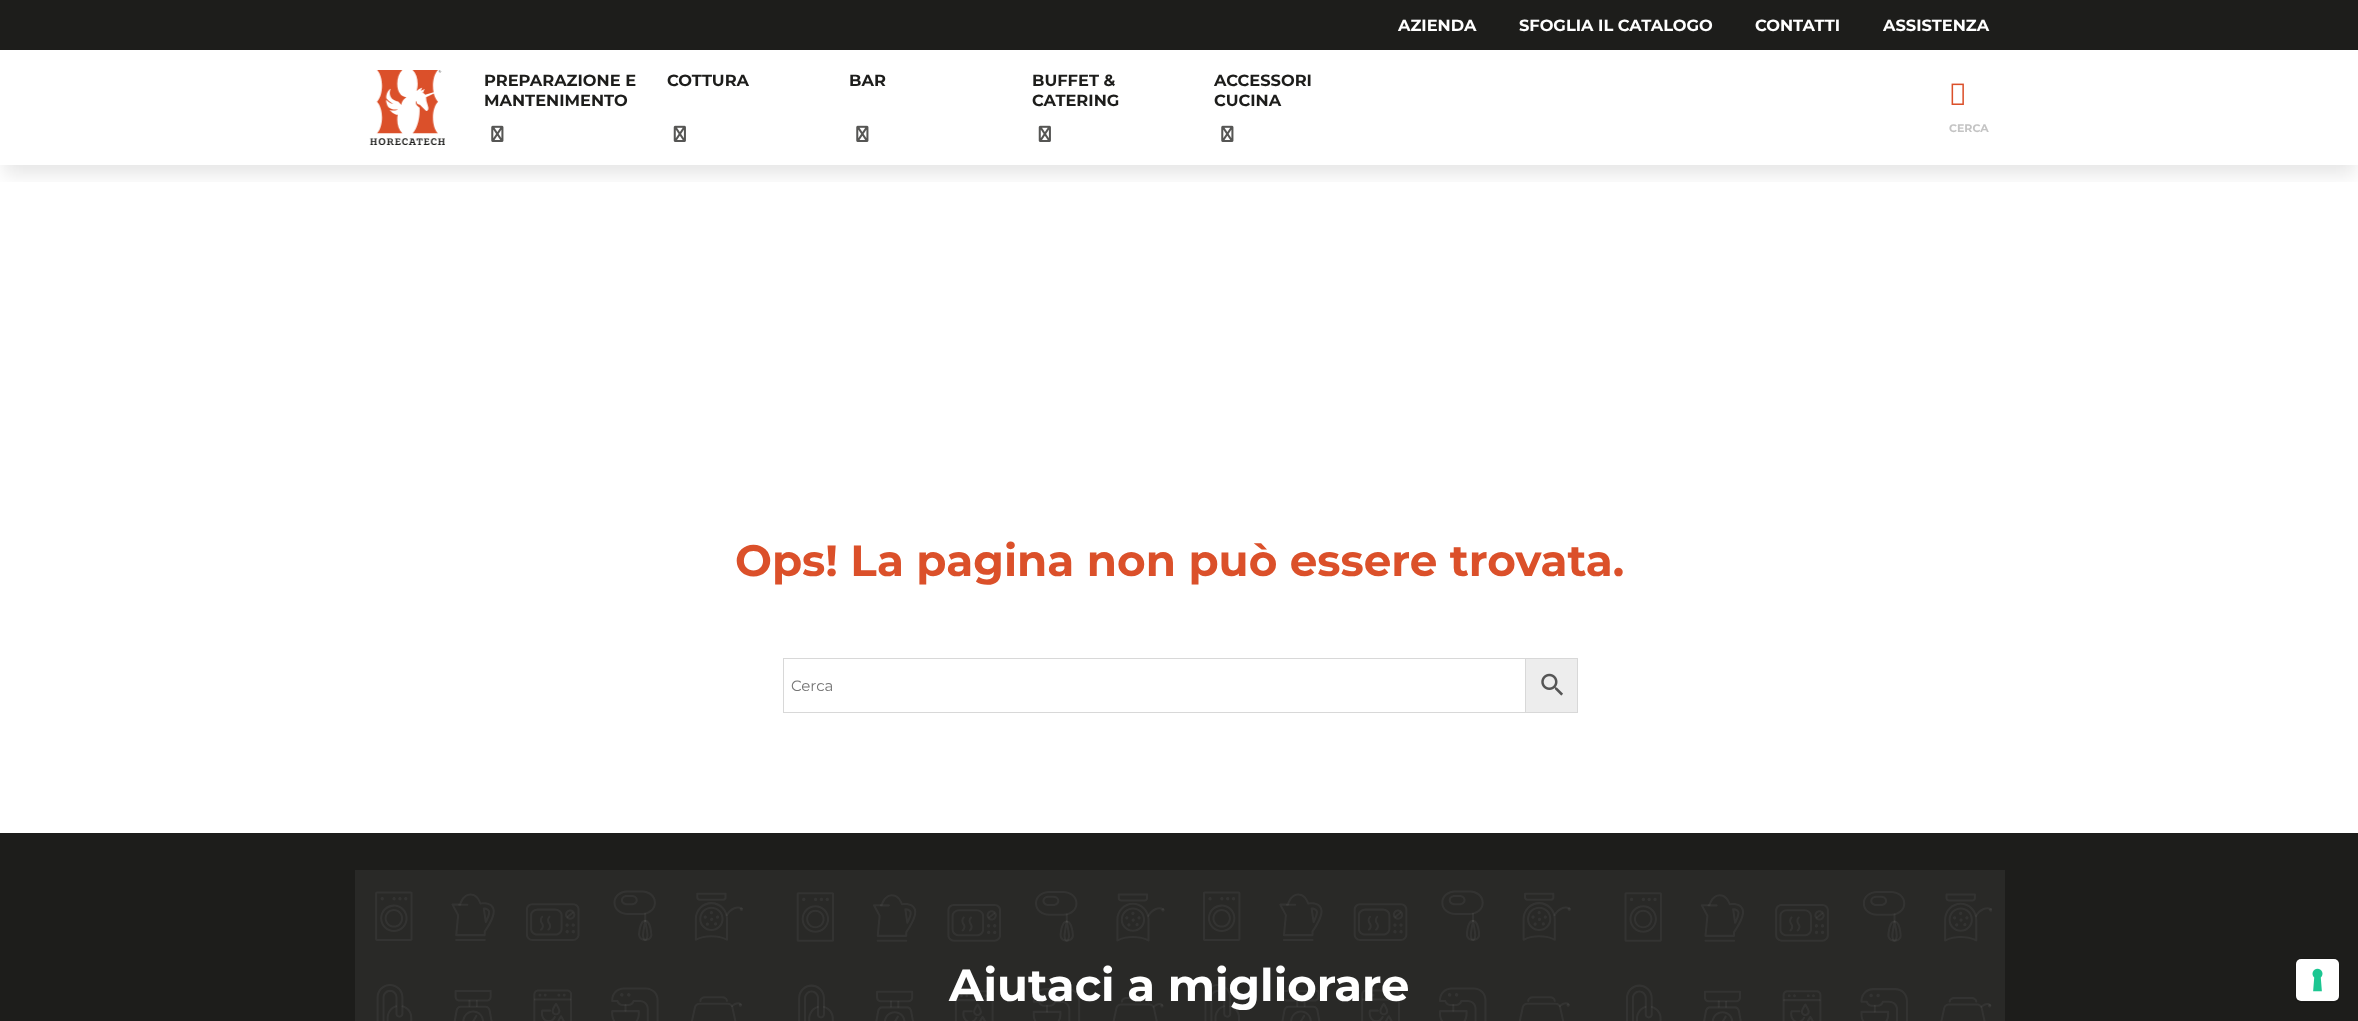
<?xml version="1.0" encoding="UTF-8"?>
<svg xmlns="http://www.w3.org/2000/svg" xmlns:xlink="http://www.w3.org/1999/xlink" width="2358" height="1021">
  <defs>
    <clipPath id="clip1"><rect x="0" y="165" width="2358" height="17" /></clipPath>
  </defs>
  <rect width="100%" height="100%" fill="#ffffff" />
  <g clip-path="url(#clip1)">
    <rect x="4" y="16" width="2351" height="158" fill="#000000" fill-opacity="0.1" filter="blur(9.5px)" />
  </g>
  <rect width="2358" height="50" fill="#1d1d1b" />
  <image x="369" y="70" width="76" height="75" xlink:href="image1.png" />
  <image x="491" y="125" width="13" height="17" xlink:href="image2.png" />
  <image x="673" y="125" width="13" height="17" xlink:href="image3.png" />
  <image x="856" y="125" width="13" height="17" xlink:href="image2.png" />
  <image x="1038" y="125" width="13" height="17" xlink:href="image3.png" />
  <image x="1221" y="125" width="13" height="17" xlink:href="image2.png" />
  <image x="1951" y="83" width="13" height="22" xlink:href="image4.png" />
  <rect x="1525.5" y="658.5" width="52" height="54" fill="#ededed" stroke="#d8d8d8" />
  <rect x="783.5" y="658.5" width="742" height="54" fill="none" stroke="#d8d8d8" />
  <image x="1541" y="673" width="22" height="23" xlink:href="image5.png" />
  <rect y="833" width="2358" height="188" fill="#1d1d1b" />
  <rect x="355" y="870" width="1650" height="151" fill="#292927" />
  <image x="375" y="890" width="1617" height="131" xlink:href="image6.png" />
  <rect x="2295.5" y="958.5" width="44" height="44" rx="5.5" fill="none" stroke="#191917" />
  <rect x="2296" y="959" width="43" height="42" rx="5" fill="#ffffff" />
  <image x="2312" y="968" width="11" height="24" xlink:href="image7.png" />
  <text x="1398" y="31" style="font-family: Montserrat; font-size: 16.25px; font-weight: bold; fill: #ffffff">AZIENDA</text>
  <text x="1519" y="31" style="font-family: Montserrat; font-size: 16.25px; font-weight: bold; fill: #ffffff">SFOGLIA IL CATALOGO</text>
  <text x="1755" y="31" style="font-family: Montserrat; font-size: 16.25px; font-weight: bold; fill: #ffffff">CONTATTI</text>
  <text x="1883" y="31" style="font-family: Montserrat; font-size: 16.25px; font-weight: bold; fill: #ffffff">ASSISTENZA</text>
  <text x="484" y="86" style="font-family: Montserrat; font-size: 16.25px; font-weight: bold; fill: #1d1d1b">PREPARAZIONE E</text>
  <text x="484" y="106" style="font-family: Montserrat; font-size: 16.25px; font-weight: bold; fill: #1d1d1b">MANTENIMENTO</text>
  <text x="667" y="86" style="font-family: Montserrat; font-size: 16.25px; font-weight: bold; fill: #1d1d1b">COTTURA</text>
  <text x="849" y="86" style="font-family: Montserrat; font-size: 16.25px; font-weight: bold; fill: #1d1d1b">BAR</text>
  <text x="1032" y="86" style="font-family: Montserrat; font-size: 16.25px; font-weight: bold; fill: #1d1d1b">BUFFET &amp;</text>
  <text x="1032" y="106" style="font-family: Montserrat; font-size: 16.25px; font-weight: bold; fill: #1d1d1b">CATERING</text>
  <text x="1214" y="86" style="font-family: Montserrat; font-size: 16.25px; font-weight: bold; fill: #1d1d1b">ACCESSORI</text>
  <text x="1214" y="106" style="font-family: Montserrat; font-size: 16.25px; font-weight: bold; fill: #1d1d1b">CUCINA</text>
  <text x="1949" y="132" style="font-family: Montserrat; font-size: 11px; font-weight: bold; fill: #c4c4c4">CERCA</text>
  <text x="735" y="576" style="font-family: Montserrat; font-size: 43.75px; font-weight: bold; fill: #db502a">Ops! La pagina non può essere trovata.</text>
  <text x="791" y="691" style="font-family: Montserrat; font-size: 15px; fill: #757575">Cerca</text>
  <text x="949" y="1001" style="font-family: Montserrat; font-size: 45px; font-weight: bold; fill: #ffffff">Aiutaci a migliorare</text>
</svg>
